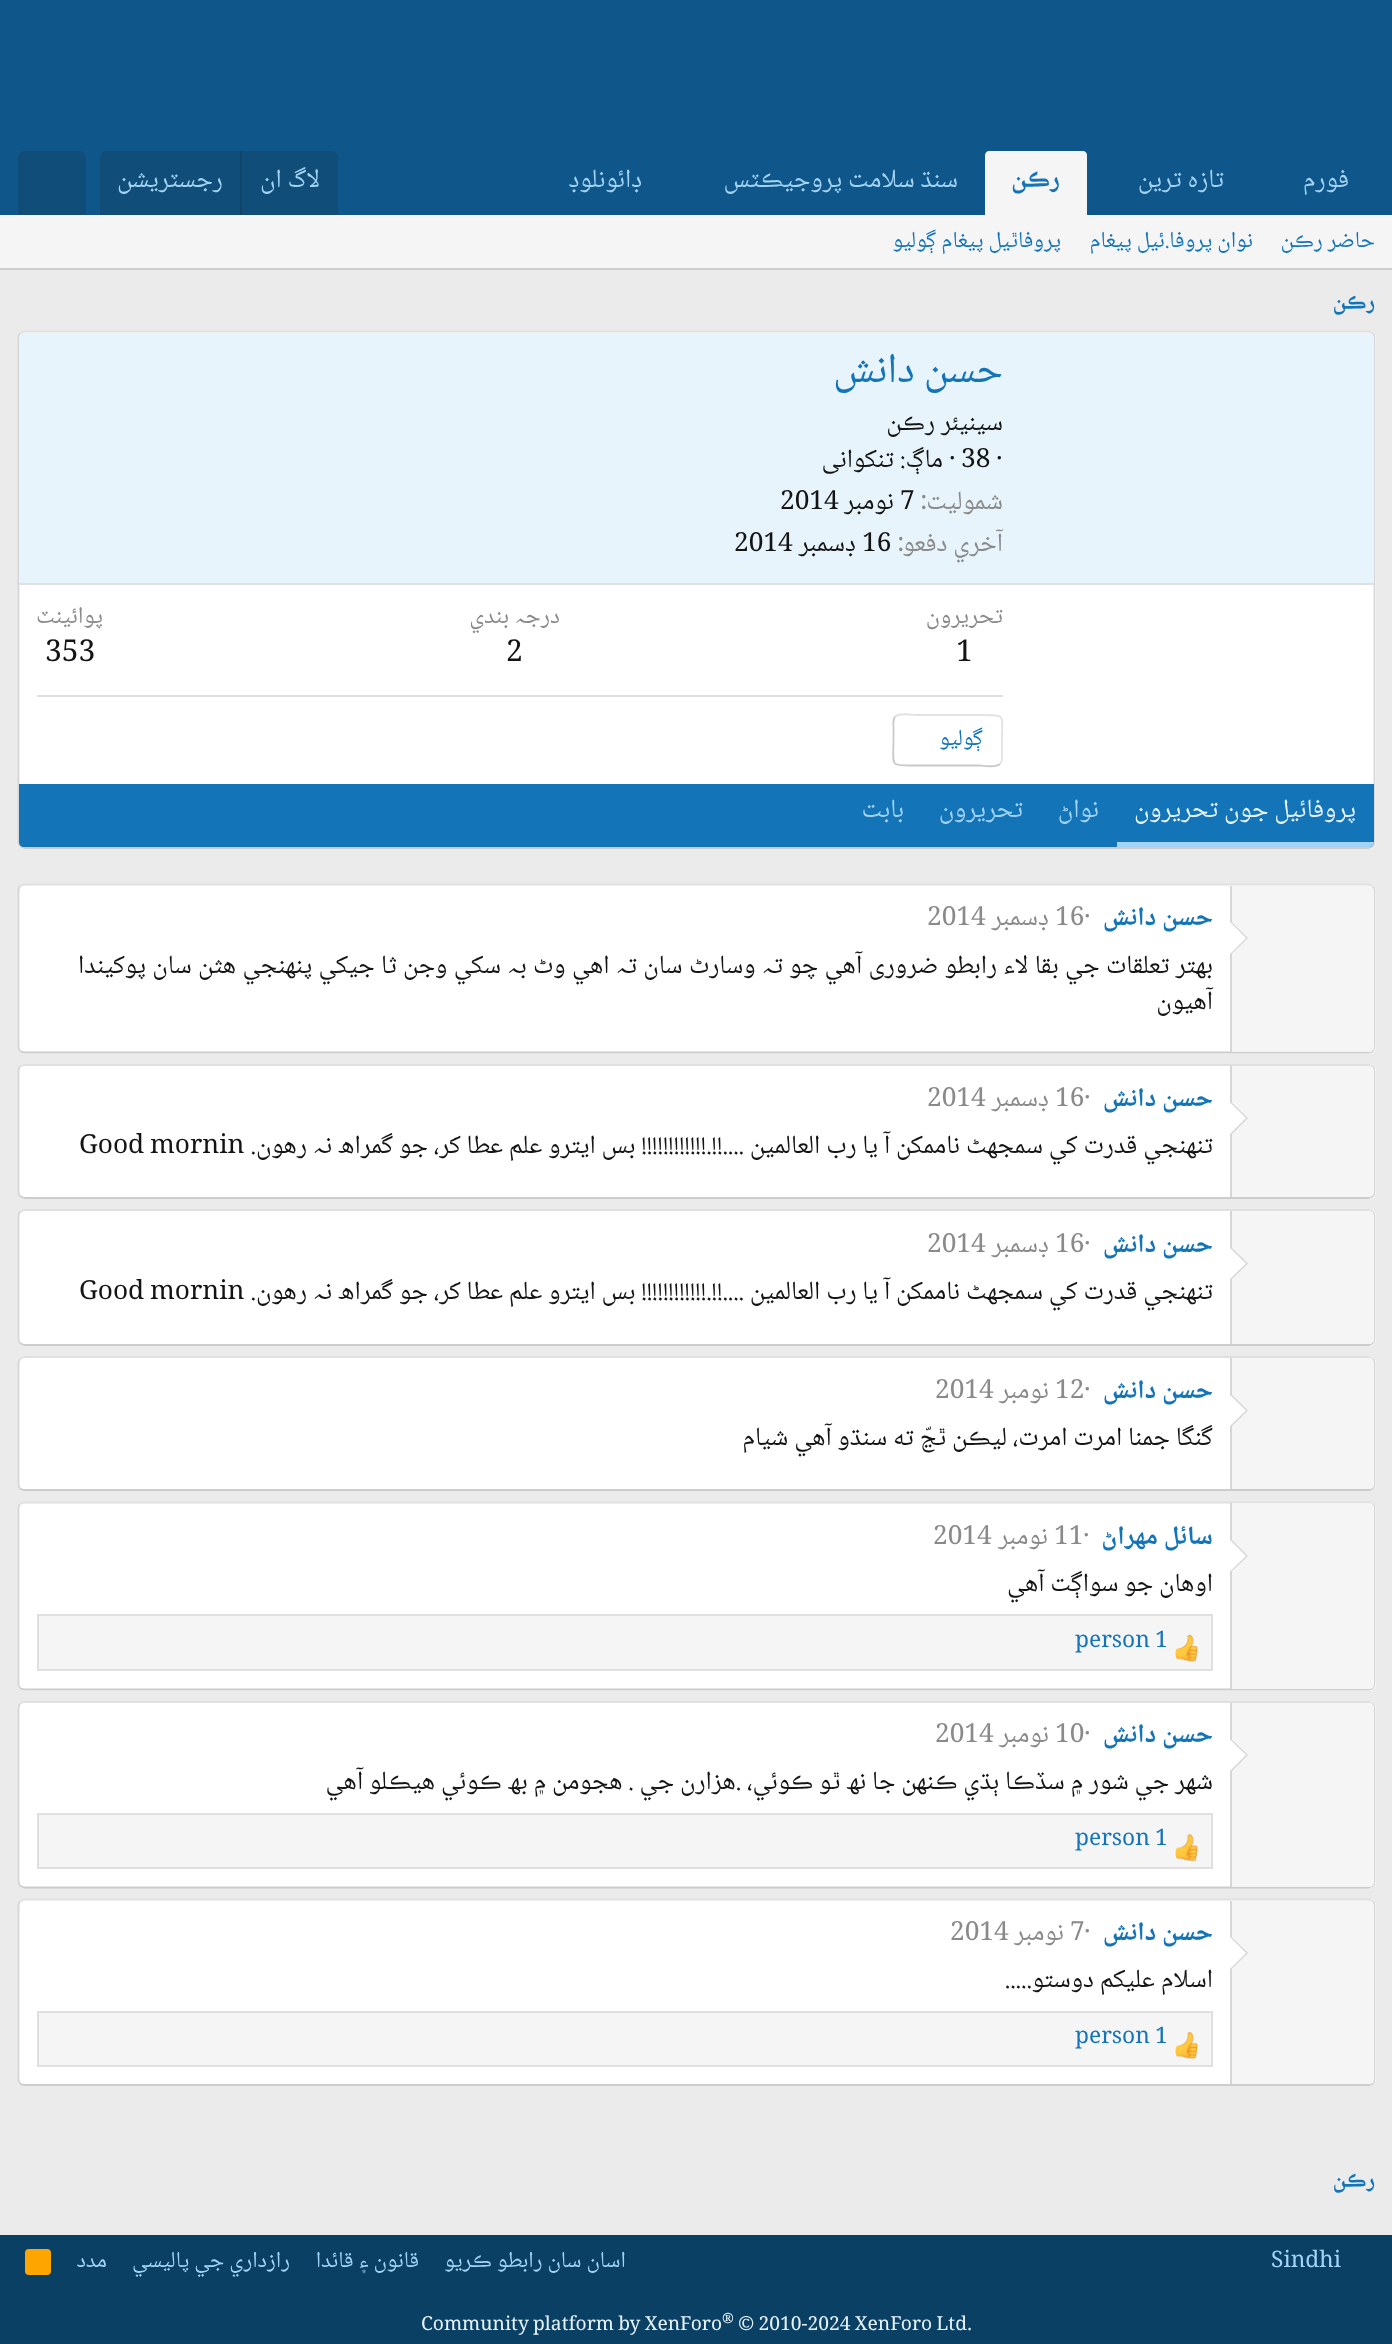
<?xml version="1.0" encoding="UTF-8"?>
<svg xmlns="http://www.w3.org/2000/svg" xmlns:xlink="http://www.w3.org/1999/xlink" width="1392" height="2344">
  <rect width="100%" height="100%" fill="#ebebeb" />
  <rect width="1392" height="215" fill="#0f578a" />
  <path d="M 989 151 h 94 c 2 0 4 2 4 4 v 60 h -102 v -60 c 0 -2 2 -4 4 -4 z" fill="#f5f5f5" />
  <path d="M 107 151 h 224 c 4 0 7 3 7 7 v 57 h -238 v -57 c 0 -4 3 -7 7 -7 z" fill="#104d78" />
  <rect x="240" y="151" width="2" height="64" fill="#114469" />
  <path d="M 25 151 h 54 c 4 0 7 3 7 7 v 57 h -68 v -57 c 0 -4 3 -7 7 -7 z" fill="#104d78" />
  <rect y="215" width="1392" height="53" fill="#f5f5f5" />
  <rect y="268" width="1392" height="2" fill="#cccccc" />
  <rect x="18" y="331" width="1358" height="518" rx="7" fill="#ffffff" />
  <path d="M 20 333.5 c 1.5 -1 3 -2 4.5 -2 h 1344 c 1.5 0 3 1 4.5 2" fill="none" stroke="#e0e0e0" stroke-width="1.8" />
  <path d="M 1373 333.5 c 1 1 1.5 2.5 1.5 4.5 v 504 c 0 1.5 -0.5 3 -1.5 4" fill="none" stroke="#d6d6d6" stroke-width="1.8" />
  <path d="M 1373 846 c -1.5 1 -3 2 -4.5 2 h -1344 c -1.5 0 -3 -1 -4.5 -2" fill="none" stroke="#cccccc" stroke-width="1.8" />
  <path d="M 20 846 c -1 -1 -1.5 -2.5 -1.5 -4 v -504 c 0 -2 0.5 -3.5 1.5 -4.5" fill="none" stroke="#d6d6d6" stroke-width="1.8" />
  <path d="M 24 333 h 1345 c 3 0 5 2 5 5 v 247 h -1355 v -247 c 0 -3 2 -5 5 -5 z" fill="#e8f4fc" />
  <rect x="19" y="583" width="1355" height="2" fill="#e0e0e0" />
  <rect x="37" y="695" width="966" height="2" fill="#e0e0e0" />
  <path d="M 895 716.5 c 4.5 -4 19.5 -1.5 20.5 -1.5 h 64 c 27 0 22.5 -2 22.5 25 v 13 c 0 3.5 1 8 -2 11" fill="none" stroke="#e3e3e3" stroke-width="1.8" />
  <path d="M 1000 764 c -4.5 4 -19.5 1.5 -20.5 1.5 h -64 c -26.5 0 -22 2 -22 -25.5 v -12.5 c 0 -3.5 -1 -8 1.5 -11" fill="none" stroke="#c9c9c9" stroke-width="1.8" />
  <path d="M 19 784 h 1355 v 58 c 0 3 -2 5 -5 5 h -1345 c -3 0 -5 -2 -5 -5 z" fill="#1474b8" />
  <path d="M 1117 842 h 257 c 0 3 -2 5 -5 5 h -252 z" fill="#a3d4f5" />
  <rect x="18" y="884" width="1358" height="170" rx="7" fill="#ffffff" />
  <path d="M 20 886.5 c 1.5 -1 3 -2 4.5 -2 h 1344 c 1.5 0 3 1 4.5 2" fill="none" stroke="#e0e0e0" stroke-width="1.8" />
  <path d="M 1373 886.5 c 1 1 1.5 2.5 1.5 4.5 v 155.5 c 0 1.5 -0.5 3 -1.5 4.5" fill="none" stroke="#d6d6d6" stroke-width="1.8" />
  <path d="M 1373 1051 c -1.5 1 -3 1.5 -4.5 1.5 h -1344 c -1.5 0 -3 -0.5 -4.5 -1.5" fill="none" stroke="#cccccc" stroke-width="1.8" />
  <path d="M 20 1051 c -1 -1.5 -1.5 -3 -1.5 -4.5 v -155.5 c 0 -2 0.5 -3.5 1.5 -4.5" fill="none" stroke="#d6d6d6" stroke-width="1.8" />
  <path d="M 1230 886 h 139 c 3 0 5 2 5 5 v 156 c 0 3 -2 5 -5 5 h -139 z" fill="#f5f5f5" />
  <rect x="1230" y="886" width="2" height="166" fill="#d6d6d6" />
  <path d="M 1230 955.5 v -35 l 18 17.5 z" fill="#d6d6d6" />
  <path d="M 1230 954 v -32 l 16 16 z" fill="#ffffff" />
  <rect x="18" y="1064" width="1358" height="135" rx="7" fill="#ffffff" />
  <path d="M 20 1066.5 c 1.5 -1 3 -1.5 4.5 -1.5 h 1344 c 1.5 0 3 0.5 4.5 1.5" fill="none" stroke="#e0e0e0" stroke-width="1.8" />
  <path d="M 1373 1066.5 c 1 1.5 1.5 3 1.5 4.5 v 121 c 0 1.5 -0.5 3 -1.5 4" fill="none" stroke="#d6d6d6" stroke-width="1.8" />
  <path d="M 1373 1196 c -1.5 1 -3 2 -4.5 2 h -1344 c -1.5 0 -3 -1 -4.5 -2" fill="none" stroke="#cccccc" stroke-width="1.8" />
  <path d="M 20 1196 c -1 -1 -1.5 -2.5 -1.5 -4 v -121 c 0 -1.5 0.5 -3 1.5 -4.5" fill="none" stroke="#d6d6d6" stroke-width="1.8" />
  <path d="M 1230 1066 h 139 c 3 0 5 2 5 5 v 121 c 0 3 -2 5 -5 5 h -139 z" fill="#f5f5f5" />
  <rect x="1230" y="1066" width="2" height="131" fill="#d6d6d6" />
  <path d="M 1230 1136 v -35 l 18 17 z" fill="#d6d6d6" />
  <path d="M 1230 1134 v -31.5 l 16 15.5 z" fill="#ffffff" />
  <rect x="18" y="1209" width="1358" height="137" rx="7" fill="#ffffff" />
  <path d="M 20 1212 c 1.5 -1 3 -2 4.5 -2 h 1344 c 1.5 0 3 1 4.5 2" fill="none" stroke="#e0e0e0" stroke-width="1.8" />
  <path d="M 1373 1212 c 1 1 1.5 2.5 1.5 4 v 123 c 0 1.5 -0.5 3 -1.5 4" fill="none" stroke="#d6d6d6" stroke-width="1.8" />
  <path d="M 1373 1343 c -1.5 1 -3 2 -4.5 2 h -1344 c -1.5 0 -3 -1 -4.5 -2" fill="none" stroke="#cccccc" stroke-width="1.8" />
  <path d="M 20 1343 c -1 -1 -1.5 -2.5 -1.5 -4 v -123 c 0 -1.5 0.5 -3 1.5 -4" fill="none" stroke="#d6d6d6" stroke-width="1.8" />
  <path d="M 1230 1211 h 139 c 3 0 5 2 5 5 v 123 c 0 3 -2 5 -5 5 h -139 z" fill="#f5f5f5" />
  <rect x="1230" y="1211" width="2" height="133" fill="#d6d6d6" />
  <path d="M 1230 1281 v -35 l 18 17.5 z" fill="#d6d6d6" />
  <path d="M 1230 1279 v -31 l 16 15.5 z" fill="#ffffff" />
  <rect x="18" y="1356" width="1358" height="135" rx="7" fill="#ffffff" />
  <path d="M 20 1359 c 1.5 -1 3 -2 4.5 -2 h 1344 c 1.5 0 3 1 4.5 2" fill="none" stroke="#e0e0e0" stroke-width="1.8" />
  <path d="M 1373 1359 c 1 1 1.5 2.5 1.5 4 v 121 c 0 1.5 -0.5 3 -1.5 4.5" fill="none" stroke="#d6d6d6" stroke-width="1.8" />
  <path d="M 1373 1488.5 c -1.5 1 -3 1.5 -4.5 1.5 h -1344 c -1.5 0 -3 -0.5 -4.5 -1.5" fill="none" stroke="#cccccc" stroke-width="1.8" />
  <path d="M 20 1488.5 c -1 -1.5 -1.5 -3 -1.5 -4.5 v -121 c 0 -1.5 0.5 -3 1.5 -4" fill="none" stroke="#d6d6d6" stroke-width="1.8" />
  <path d="M 1230 1358 h 139 c 3 0 5 2 5 5 v 121 c 0 3 -2 5 -5 5 h -139 z" fill="#f5f5f5" />
  <rect x="1230" y="1358" width="2" height="131" fill="#d6d6d6" />
  <path d="M 1230 1428 v -35 l 18 17.5 z" fill="#d6d6d6" />
  <path d="M 1230 1426 v -31 l 16 15.5 z" fill="#ffffff" />
  <rect x="18" y="1502" width="1358" height="189" rx="7" fill="#ffffff" />
  <path d="M 20 1504 c 1.5 -1 3 -1.5 4.5 -1.5 h 1344 c 1.5 0 3 0.5 4.5 1.5" fill="none" stroke="#e0e0e0" stroke-width="1.8" />
  <path d="M 1373 1504 c 1 1.5 1.5 3 1.5 4.5 v 175 c 0 1.5 -0.5 3 -1.5 4.5" fill="none" stroke="#d6d6d6" stroke-width="1.8" />
  <path d="M 1373 1688 c -1.5 1 -3 1.5 -4.5 1.5 h -1344 c -1.5 0 -3 -0.5 -4.5 -1.5" fill="none" stroke="#cccccc" stroke-width="1.8" />
  <path d="M 20 1688 c -1 -1.5 -1.5 -3 -1.5 -4.5 v -175 c 0 -1.5 0.5 -3 1.5 -4.5" fill="none" stroke="#d6d6d6" stroke-width="1.8" />
  <path d="M 1230 1503 h 139 c 3 0 5 2 5 5 v 176 c 0 3 -2 5 -5 5 h -139 z" fill="#f5f5f5" />
  <rect x="1230" y="1503" width="2" height="186" fill="#d6d6d6" />
  <path d="M 1230 1573 v -35 l 18 18 z" fill="#d6d6d6" />
  <path d="M 1230 1571.5 v -31.5 l 16 16 z" fill="#ffffff" />
  <rect x="38" y="1615" width="1174" height="55" fill="#f5f5f5" stroke="#e0e0e0" stroke-width="2" />
  <image x="1175" y="1634" width="23" height="28" xlink:href="image1.png" />
  <rect x="18" y="1701" width="1358" height="187" rx="7" fill="#ffffff" />
  <path d="M 20 1703.5 c 1.5 -1 3 -1.5 4.5 -1.5 h 1344 c 1.5 0 3 0.5 4.5 1.5" fill="none" stroke="#e0e0e0" stroke-width="1.8" />
  <path d="M 1373 1703.5 c 1 1.5 1.5 3 1.5 4.5 v 173 c 0 2 -0.5 3.5 -1.5 4.5" fill="none" stroke="#d6d6d6" stroke-width="1.8" />
  <path d="M 1373 1885.5 c -1.5 1 -3 2 -4.5 2 h -1344 c -1.5 0 -3 -1 -4.5 -2" fill="none" stroke="#cccccc" stroke-width="1.8" />
  <path d="M 20 1885.5 c -1 -1 -1.5 -2.5 -1.5 -4.5 v -173 c 0 -1.5 0.5 -3 1.5 -4.5" fill="none" stroke="#d6d6d6" stroke-width="1.8" />
  <path d="M 1230 1703 h 139 c 3 0 5 2 5 5 v 174 c 0 3 -2 5 -5 5 h -139 z" fill="#f5f5f5" />
  <rect x="1230" y="1703" width="2" height="184" fill="#d6d6d6" />
  <path d="M 1230 1773 v -35 l 18 17 z" fill="#d6d6d6" />
  <path d="M 1230 1771 v -31.5 l 16 15.5 z" fill="#ffffff" />
  <rect x="38" y="1814" width="1174" height="54" fill="#f5f5f5" stroke="#e0e0e0" stroke-width="2" />
  <image x="1175" y="1834" width="23" height="27" xlink:href="image2.png" />
  <rect x="18" y="1899" width="1358" height="187" rx="7" fill="#ffffff" />
  <path d="M 20 1901.5 c 1.5 -1 3 -2 4.5 -2 h 1344 c 1.5 0 3 1 4.5 2" fill="none" stroke="#e0e0e0" stroke-width="1.8" />
  <path d="M 1373 1901.5 c 1 1 1.5 2.5 1.5 4.5 v 173 c 0 1.5 -0.5 3 -1.5 4.5" fill="none" stroke="#d6d6d6" stroke-width="1.8" />
  <path d="M 1373 2083.5 c -1.5 1 -3 1.5 -4.5 1.5 h -1344 c -1.5 0 -3 -0.5 -4.5 -1.5" fill="none" stroke="#cccccc" stroke-width="1.8" />
  <path d="M 20 2083.5 c -1 -1.5 -1.5 -3 -1.5 -4.5 v -173 c 0 -2 0.5 -3.5 1.5 -4.5" fill="none" stroke="#d6d6d6" stroke-width="1.8" />
  <path d="M 1230 1901 h 139 c 3 0 5 2 5 5 v 173 c 0 3 -2 5 -5 5 h -139 z" fill="#f5f5f5" />
  <rect x="1230" y="1901" width="2" height="183" fill="#d6d6d6" />
  <path d="M 1230 1970.5 v -35 l 18 17.5 z" fill="#d6d6d6" />
  <path d="M 1230 1969 v -32 l 16 16 z" fill="#ffffff" />
  <rect x="38" y="2012" width="1174" height="54" fill="#f5f5f5" stroke="#e0e0e0" stroke-width="2" />
  <image x="1175" y="2032" width="23" height="27" xlink:href="image3.png" />
  <rect y="2235" width="1392" height="109" fill="#0b4065" />
  <rect x="25" y="2249" width="26" height="26" rx="4" fill="#ffa500" />
  <text x="1349" y="187" style="font-family: Noto Naskh Arabic; font-size: 26.25px; direction: rtl; fill: #a3d4f5">فورم</text>
  <text x="1224" y="187" style="font-family: Noto Naskh Arabic; font-size: 26.25px; direction: rtl; fill: #a3d4f5">تازہ ترين</text>
  <text x="1060" y="187" style="font-family: Noto Naskh Arabic; font-size: 26.25px; font-weight: bold; direction: rtl; fill: #1474b8">رڪن</text>
  <text x="958" y="187" style="font-family: Noto Naskh Arabic; font-size: 26.25px; direction: rtl; fill: #a3d4f5">سنڌ سلامت پروجيڪٽس</text>
  <text x="642" y="187" style="font-family: Noto Naskh Arabic; font-size: 26.25px; direction: rtl; fill: #a3d4f5">ڊائونلوڊ</text>
  <text x="320" y="187" style="font-family: Noto Naskh Arabic; font-size: 26.25px; direction: rtl; fill: #a3d4f5">لاگ ان</text>
  <text x="223" y="187" style="font-family: Noto Naskh Arabic; font-size: 26.25px; direction: rtl; fill: #a3d4f5">رجسٽريشن</text>
  <text x="1375" y="247" style="font-family: Noto Naskh Arabic; font-size: 22.75px; direction: rtl; fill: #1474b8">حاضر رڪن</text>
  <text x="1253" y="247" style="font-family: Noto Naskh Arabic; font-size: 22.75px; direction: rtl; fill: #1474b8">نوان پروفا.ئيل پيغام</text>
  <text x="1061" y="247" style="font-family: Noto Naskh Arabic; font-size: 22.75px; direction: rtl; fill: #1474b8">پروفاٿيل پيغام ڳوليو</text>
  <text x="1375" y="309" style="font-family: Noto Naskh Arabic; font-size: 22.75px; font-weight: bold; direction: rtl; fill: #1474b8">رڪن</text>
  <text x="1003" y="382" style="font-family: Noto Naskh Arabic; font-size: 42px; direction: rtl; fill: #1474b8">حسن دانش</text>
  <text x="1003" y="430" style="font-family: Noto Naskh Arabic; font-size: 26.25px; direction: rtl; fill: #141414">سينيئر رڪن</text>
  <text x="996" y="467" style="font-family: Noto Naskh Arabic; font-size: 26.25px; fill: #141414">·</text>
  <text x="961" y="467" style="font-family: Noto Naskh Arabic; font-size: 26.25px; fill: #141414">38</text>
  <text x="949" y="467" style="font-family: Noto Naskh Arabic; font-size: 26.25px; fill: #141414">·</text>
  <text x="943" y="467" style="font-family: Noto Naskh Arabic; font-size: 26.25px; direction: rtl; fill: #141414">ماڳ:</text>
  <text x="894" y="467" style="font-family: Noto Naskh Arabic; font-size: 26.25px; direction: rtl; fill: #141414">تنکوانی</text>
  <text x="1003" y="509" style="font-family: Noto Naskh Arabic; font-size: 26.25px; direction: rtl; fill: #8a8a8a">شموليت</text>
  <text x="920" y="509" style="font-family: Noto Naskh Arabic; font-size: 26.25px; fill: #8a8a8a">:</text>
  <text x="900" y="509" style="font-family: Noto Naskh Arabic; font-size: 26.25px; fill: #141414">7</text>
  <text x="894" y="509" style="font-family: Noto Naskh Arabic; font-size: 26.25px; direction: rtl; fill: #141414">نومبر</text>
  <text x="780" y="509" style="font-family: Noto Naskh Arabic; font-size: 26.25px; fill: #141414">2014</text>
  <text x="1003" y="551" style="font-family: Noto Naskh Arabic; font-size: 26.25px; direction: rtl; fill: #8a8a8a">آخري دفعو</text>
  <text x="897" y="551" style="font-family: Noto Naskh Arabic; font-size: 26.25px; fill: #8a8a8a">:</text>
  <text x="862" y="551" style="font-family: Noto Naskh Arabic; font-size: 26.25px; fill: #141414">16</text>
  <text x="856" y="551" style="font-family: Noto Naskh Arabic; font-size: 26.25px; direction: rtl; fill: #141414">ڊسمبر</text>
  <text x="734" y="551" style="font-family: Noto Naskh Arabic; font-size: 26.25px; fill: #141414">2014</text>
  <text x="1003" y="623" style="font-family: Noto Naskh Arabic; font-size: 24px; direction: rtl; fill: #8a8a8a">تحريرون</text>
  <text x="956" y="661" style="font-family: Noto Naskh Arabic; font-size: 30px; fill: #141414">1</text>
  <text x="560" y="623" style="font-family: Noto Naskh Arabic; font-size: 24px; direction: rtl; fill: #8a8a8a">درجہ بندي</text>
  <text x="506" y="661" style="font-family: Noto Naskh Arabic; font-size: 30px; fill: #141414">2</text>
  <text x="103" y="623" style="font-family: Noto Naskh Arabic; font-size: 24px; direction: rtl; fill: #8a8a8a">پوائينٽ</text>
  <text x="45" y="661" style="font-family: Noto Naskh Arabic; font-size: 30px; fill: #141414">353</text>
  <text x="983" y="745" style="font-family: Noto Naskh Arabic; font-size: 22.75px; direction: rtl; fill: #1474b8">ڳوليو</text>
  <text x="1356" y="817" style="font-family: Noto Naskh Arabic; font-size: 26.25px; direction: rtl; fill: #e8f4fc">پروفائيل جون تحريرون</text>
  <text x="1099" y="817" style="font-family: Noto Naskh Arabic; font-size: 26.25px; direction: rtl; fill: #a3d4f5">نواڻ</text>
  <text x="1023" y="817" style="font-family: Noto Naskh Arabic; font-size: 26.25px; direction: rtl; fill: #a3d4f5">تحريرون</text>
  <text x="904" y="817" style="font-family: Noto Naskh Arabic; font-size: 26.25px; direction: rtl; fill: #a3d4f5">بابت</text>
  <text x="1213" y="925" style="font-family: Noto Naskh Arabic; font-size: 26.25px; font-weight: bold; direction: rtl; fill: #1474b8">حسن دانش</text>
  <text x="1084" y="925" style="font-family: Noto Naskh Arabic; font-size: 26.25px; fill: #8a8a8a">·</text>
  <text x="1055" y="925" style="font-family: Noto Naskh Arabic; font-size: 26.25px; fill: #8a8a8a">16</text>
  <text x="1049" y="925" style="font-family: Noto Naskh Arabic; font-size: 26.25px; direction: rtl; fill: #8a8a8a">ڊسمبر</text>
  <text x="927" y="925" style="font-family: Noto Naskh Arabic; font-size: 26.25px; fill: #8a8a8a">2014</text>
  <text x="1213" y="973" word-spacing="0.5" style="font-family: Noto Naskh Arabic; font-size: 26.25px; direction: rtl; fill: #141414">بھتر تعلقات جي بقا لاء رابطو ضروری آھي چو تہ وسارٹ سان تہ اھي وٹ بہ سکي وجن ثا جیکي پنھنجي ھثن سان پوکیندا</text>
  <text x="1213" y="1009" style="font-family: Noto Naskh Arabic; font-size: 26.25px; direction: rtl; fill: #141414">آھیون</text>
  <text x="1213" y="1106" style="font-family: Noto Naskh Arabic; font-size: 26.25px; font-weight: bold; direction: rtl; fill: #1474b8">حسن دانش</text>
  <text x="1084" y="1106" style="font-family: Noto Naskh Arabic; font-size: 26.25px; fill: #8a8a8a">·</text>
  <text x="1055" y="1106" style="font-family: Noto Naskh Arabic; font-size: 26.25px; fill: #8a8a8a">16</text>
  <text x="1049" y="1106" style="font-family: Noto Naskh Arabic; font-size: 26.25px; direction: rtl; fill: #8a8a8a">ڊسمبر</text>
  <text x="927" y="1106" style="font-family: Noto Naskh Arabic; font-size: 26.25px; fill: #8a8a8a">2014</text>
  <text x="1213" y="1153" style="font-family: Noto Naskh Arabic; font-size: 26.25px; direction: rtl; fill: #141414">تنھنجي قدرت کي سمجھٹ ناممكن آ</text>
  <text x="878" y="1153" style="font-family: Noto Naskh Arabic; font-size: 26.25px; direction: rtl; fill: #141414">يا رب العالمين ....!!.!!!!!!!!!!!! بس ايترو علم عطا کر، جو گمراھ نہ رھون.</text>
  <text x="79" y="1153" style="font-family: Noto Naskh Arabic; font-size: 26.25px; fill: #141414">Good mornin</text>
  <text x="1213" y="1252" style="font-family: Noto Naskh Arabic; font-size: 26.25px; font-weight: bold; direction: rtl; fill: #1474b8">حسن دانش</text>
  <text x="1084" y="1252" style="font-family: Noto Naskh Arabic; font-size: 26.25px; fill: #8a8a8a">·</text>
  <text x="1055" y="1252" style="font-family: Noto Naskh Arabic; font-size: 26.25px; fill: #8a8a8a">16</text>
  <text x="1049" y="1252" style="font-family: Noto Naskh Arabic; font-size: 26.25px; direction: rtl; fill: #8a8a8a">ڊسمبر</text>
  <text x="927" y="1252" style="font-family: Noto Naskh Arabic; font-size: 26.25px; fill: #8a8a8a">2014</text>
  <text x="1213" y="1299" style="font-family: Noto Naskh Arabic; font-size: 26.25px; direction: rtl; fill: #141414">تنھنجي قدرت کي سمجھٹ ناممكن آ</text>
  <text x="878" y="1299" style="font-family: Noto Naskh Arabic; font-size: 26.25px; direction: rtl; fill: #141414">يا رب العالمين ....!!.!!!!!!!!!!!! بس ايترو علم عطا کر، جو گمراھ نہ رھون.</text>
  <text x="79" y="1299" style="font-family: Noto Naskh Arabic; font-size: 26.25px; fill: #141414">Good mornin</text>
  <text x="1213" y="1398" style="font-family: Noto Naskh Arabic; font-size: 26.25px; font-weight: bold; direction: rtl; fill: #1474b8">حسن دانش</text>
  <text x="1084" y="1398" style="font-family: Noto Naskh Arabic; font-size: 26.25px; fill: #8a8a8a">·</text>
  <text x="1055" y="1398" style="font-family: Noto Naskh Arabic; font-size: 26.25px; fill: #8a8a8a">12</text>
  <text x="1049" y="1398" style="font-family: Noto Naskh Arabic; font-size: 26.25px; direction: rtl; fill: #8a8a8a">نومبر</text>
  <text x="935" y="1398" style="font-family: Noto Naskh Arabic; font-size: 26.25px; fill: #8a8a8a">2014</text>
  <text x="1213" y="1445" style="font-family: Noto Naskh Arabic; font-size: 26.25px; direction: rtl; fill: #141414">گنگا جمنا امرت امرت، ليڪن ٿڃّ ته سنڌو آهي شيام</text>
  <text x="1213" y="1544" style="font-family: Noto Naskh Arabic; font-size: 26.25px; font-weight: bold; direction: rtl; fill: #1474b8">سائل مهراڻ</text>
  <text x="1083" y="1544" style="font-family: Noto Naskh Arabic; font-size: 26.25px; fill: #8a8a8a">·</text>
  <text x="1054" y="1544" style="font-family: Noto Naskh Arabic; font-size: 26.25px; fill: #8a8a8a">11</text>
  <text x="1048" y="1544" style="font-family: Noto Naskh Arabic; font-size: 26.25px; direction: rtl; fill: #8a8a8a">نومبر</text>
  <text x="933" y="1544" style="font-family: Noto Naskh Arabic; font-size: 26.25px; fill: #8a8a8a">2014</text>
  <text x="1213" y="1591" style="font-family: Noto Naskh Arabic; font-size: 26.25px; direction: rtl; fill: #141414">اوهان جو سواڳت آهي</text>
  <text x="1075" y="1647" style="font-family: Noto Naskh Arabic; font-size: 22.75px; fill: #1474b8">person 1</text>
  <text x="1213" y="1742" style="font-family: Noto Naskh Arabic; font-size: 26.25px; font-weight: bold; direction: rtl; fill: #1474b8">حسن دانش</text>
  <text x="1084" y="1742" style="font-family: Noto Naskh Arabic; font-size: 26.25px; fill: #8a8a8a">·</text>
  <text x="1055" y="1742" style="font-family: Noto Naskh Arabic; font-size: 26.25px; fill: #8a8a8a">10</text>
  <text x="1049" y="1742" style="font-family: Noto Naskh Arabic; font-size: 26.25px; direction: rtl; fill: #8a8a8a">نومبر</text>
  <text x="935" y="1742" style="font-family: Noto Naskh Arabic; font-size: 26.25px; fill: #8a8a8a">2014</text>
  <text x="1213" y="1789" style="font-family: Noto Naskh Arabic; font-size: 26.25px; direction: rtl; fill: #141414">شھر جي شور ۾ سڏڪا ٻڌي ڪنھن جا نھ ٿو ڪوئي، .ھزارن جي . ھجومن ۾ بھ ڪوئي ھيڪلو آھي</text>
  <text x="1075" y="1845" style="font-family: Noto Naskh Arabic; font-size: 22.75px; fill: #1474b8">person 1</text>
  <text x="1213" y="1940" style="font-family: Noto Naskh Arabic; font-size: 26.25px; font-weight: bold; direction: rtl; fill: #1474b8">حسن دانش</text>
  <text x="1084" y="1940" style="font-family: Noto Naskh Arabic; font-size: 26.25px; fill: #8a8a8a">·</text>
  <text x="1070" y="1940" style="font-family: Noto Naskh Arabic; font-size: 26.25px; fill: #8a8a8a">7</text>
  <text x="1064" y="1940" style="font-family: Noto Naskh Arabic; font-size: 26.25px; direction: rtl; fill: #8a8a8a">نومبر</text>
  <text x="950" y="1940" style="font-family: Noto Naskh Arabic; font-size: 26.25px; fill: #8a8a8a">2014</text>
  <text x="1213" y="1987" style="font-family: Noto Naskh Arabic; font-size: 26.25px; direction: rtl; fill: #141414">اسلام علیکم دوستو.....</text>
  <text x="1075" y="2043" style="font-family: Noto Naskh Arabic; font-size: 22.75px; fill: #1474b8">person 1</text>
  <text x="1375" y="2187" style="font-family: Noto Naskh Arabic; font-size: 22.75px; font-weight: bold; direction: rtl; fill: #1474b8">رڪن</text>
  <text x="1271" y="2267" style="font-family: Noto Naskh Arabic; font-size: 22.75px; fill: #a3d4f5">Sindhi</text>
  <text x="626" y="2267" style="font-family: Noto Naskh Arabic; font-size: 22.75px; direction: rtl; fill: #a3d4f5">اسان سان رابطو ڪريو</text>
  <text x="419" y="2267" style="font-family: Noto Naskh Arabic; font-size: 22.75px; direction: rtl; fill: #a3d4f5">قانون ۽ قائدا</text>
  <text x="290" y="2267" style="font-family: Noto Naskh Arabic; font-size: 22.75px; direction: rtl; fill: #a3d4f5">رازداري جي پاليسي</text>
  <text x="107" y="2267" style="font-family: Noto Naskh Arabic; font-size: 22.75px; direction: rtl; fill: #a3d4f5">مدد</text>
  <text x="738" y="2330" style="font-family: Noto Naskh Arabic; font-size: 19.25px; fill: #e8f4fc">© 2010-2024 XenForo Ltd.</text>
  <text x="722" y="2323" style="font-family: Noto Naskh Arabic; font-size: 14px; fill: #e8f4fc">®</text>
  <text x="421" y="2330" style="font-family: Noto Naskh Arabic; font-size: 19.25px; fill: #e8f4fc">Community platform by XenForo</text>
</svg>
